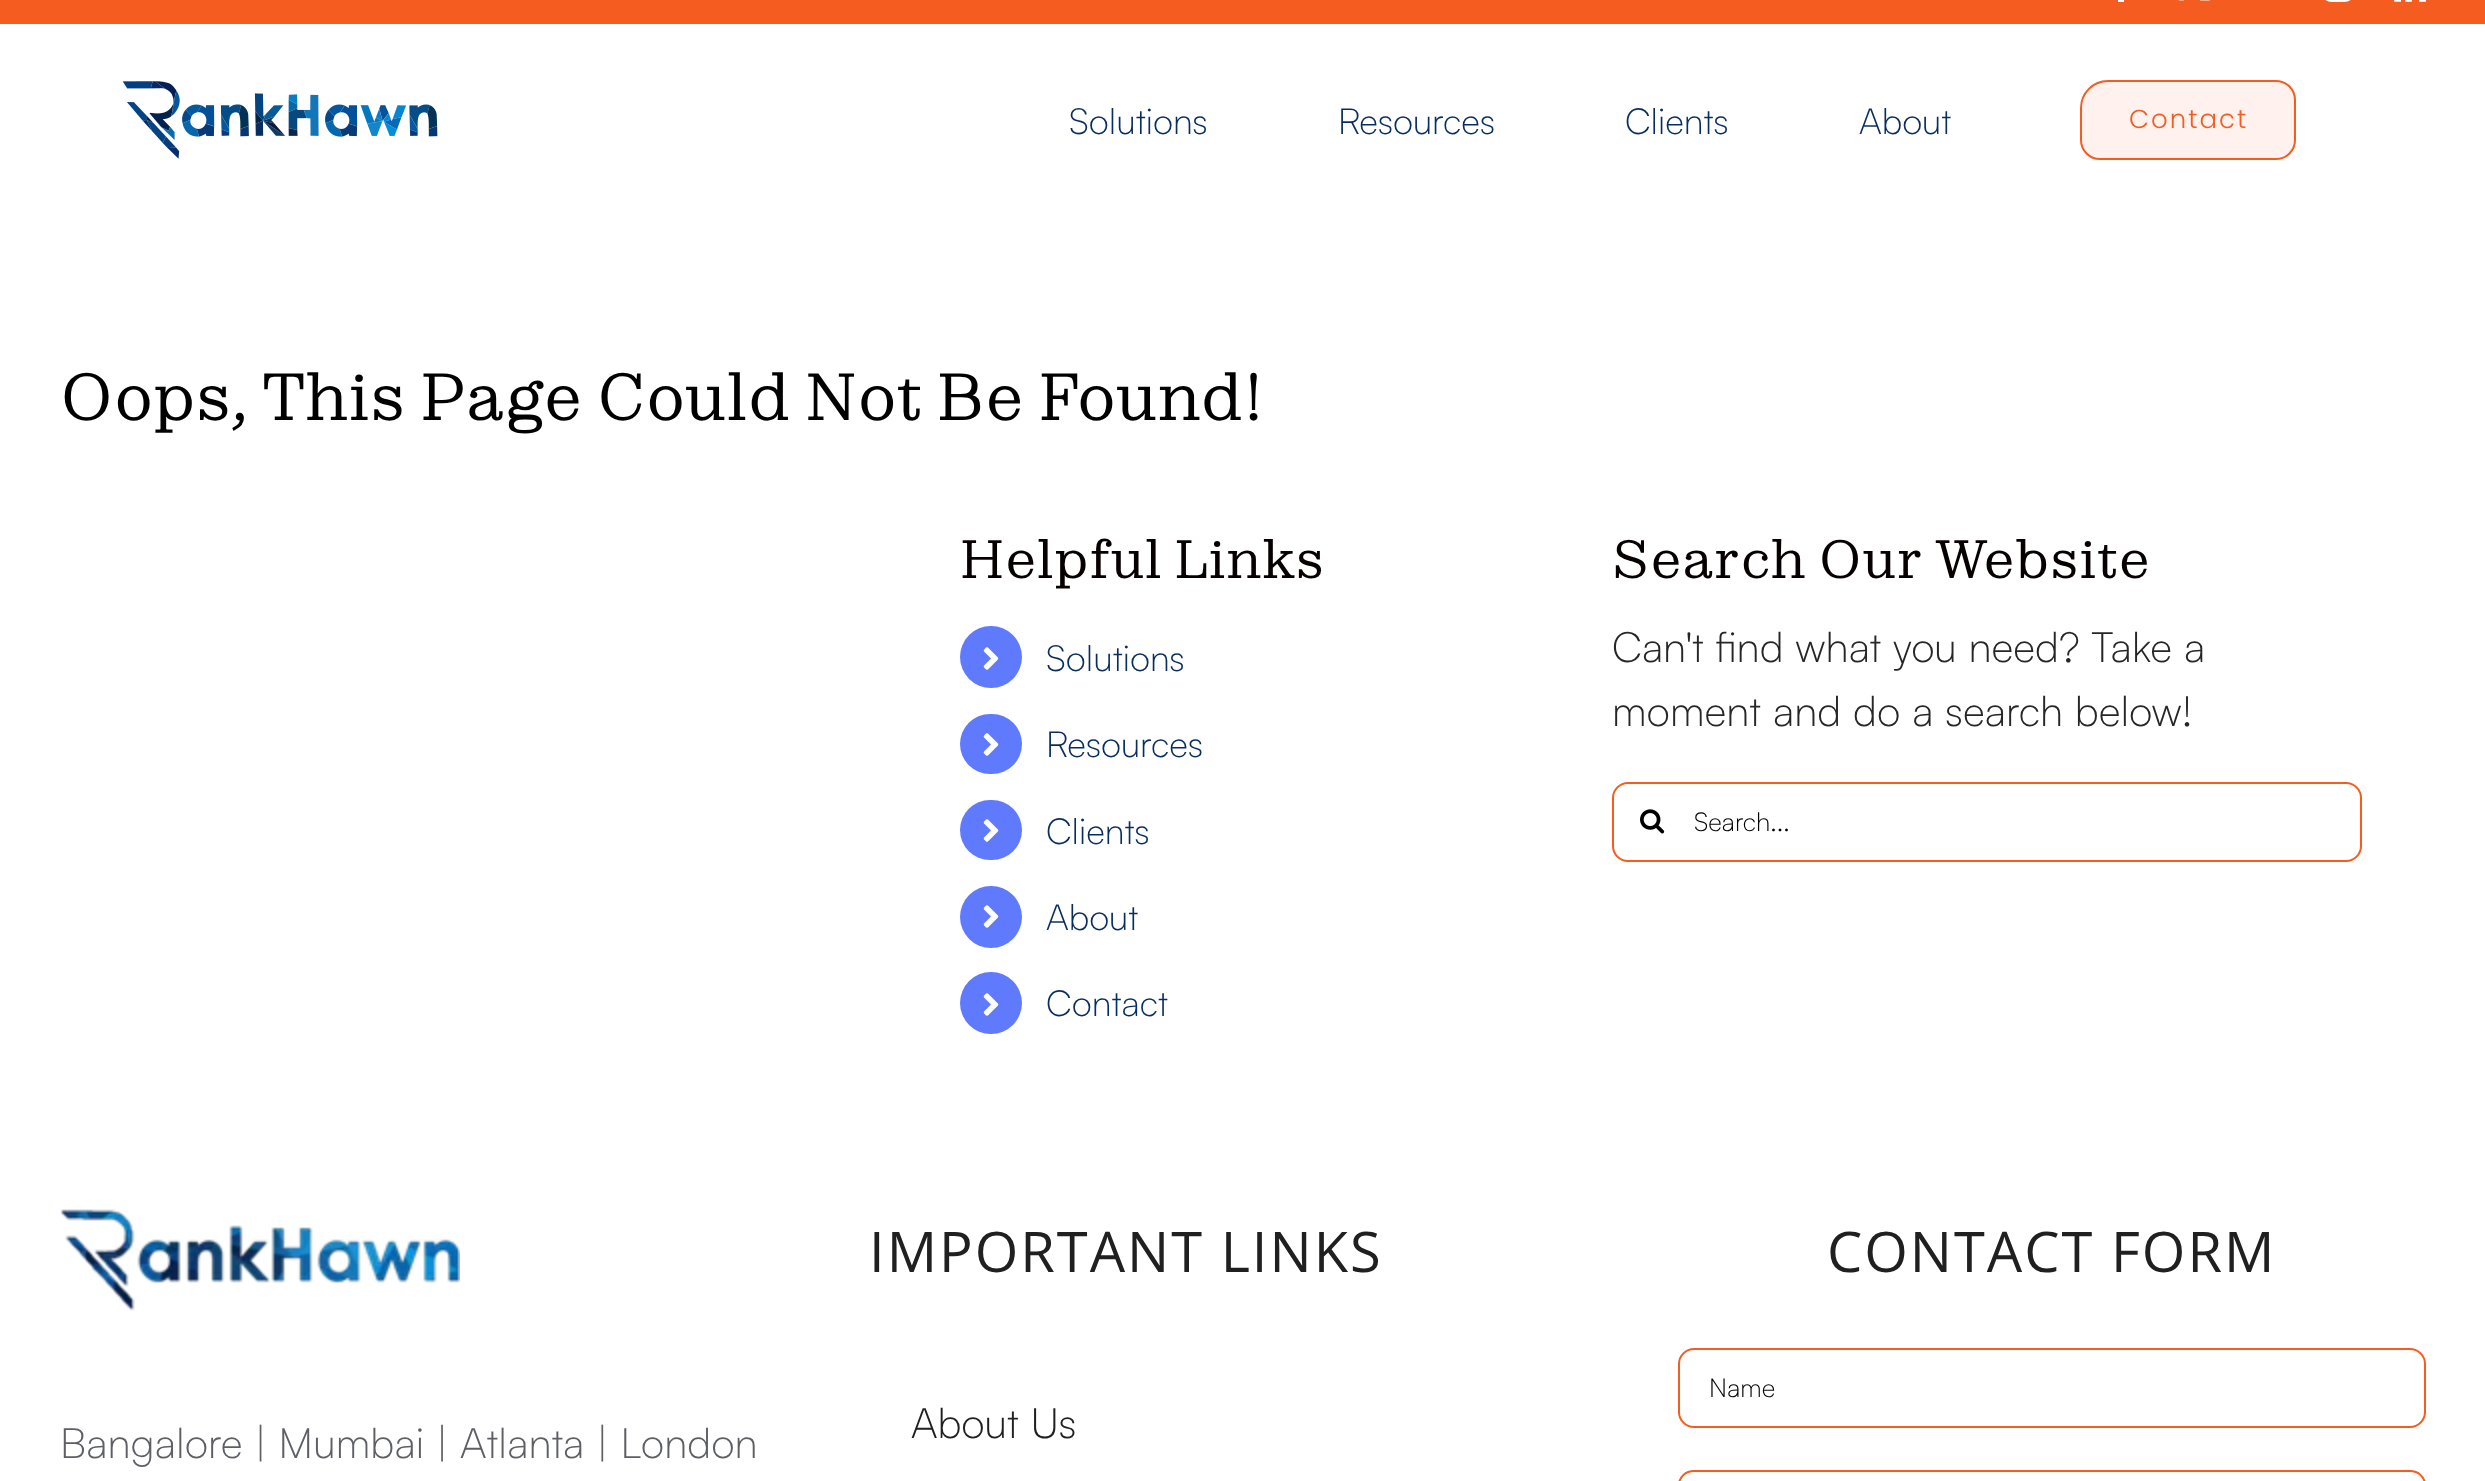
<?xml version="1.0" encoding="UTF-8"?>
<svg xmlns="http://www.w3.org/2000/svg" xmlns:xlink="http://www.w3.org/1999/xlink" width="2485" height="1481">
  <rect width="100%" height="100%" fill="#ffffff" />
  <rect width="2485" height="24" fill="#f45c20" />
  <rect x="2118" width="6" height="2" fill="#ffffff" />
  <image x="2178" y="0" width="32" height="1" xlink:href="image1.png" />
  <image x="2325" y="0" width="26" height="2" xlink:href="image2.png" />
  <image x="2394" y="0" width="32" height="2" xlink:href="image3.png" />
  <image x="122" y="81" width="316" height="78" xlink:href="image4.png" />
  <path d="M 2108 81 h 168 c 10.5 0 19 8.5 19 19 v 40 c 0 10.5 -8.5 19 -19 19 h -176 c -10.5 0 -19 -8.5 -19 -19 v -32 c 0 -15 12 -27 27 -27 z" fill="#fff1ed" stroke="#f45c20" stroke-width="2" />
  <circle cx="991" cy="657" r="31" fill="#607afe" />
  <image x="983" y="647" width="16" height="23" xlink:href="image5.png" />
  <rect x="960" y="714" width="62" height="60" rx="30" fill="#607afe" />
  <image x="983" y="733" width="16" height="23" xlink:href="image5.png" />
  <rect x="960" y="800" width="62" height="60" rx="30" fill="#607afe" />
  <image x="983" y="819" width="16" height="23" xlink:href="image5.png" />
  <circle cx="991" cy="917" r="31" fill="#607afe" />
  <image x="983" y="905" width="16" height="23" xlink:href="image5.png" />
  <circle cx="991" cy="1003" r="31" fill="#607afe" />
  <image x="983" y="993" width="16" height="23" xlink:href="image5.png" />
  <rect x="1613" y="783" width="748" height="78" rx="15" fill="none" stroke="#f45c20" stroke-width="2" />
  <image x="1640" y="809" width="25" height="25" xlink:href="image6.png" />
  <rect x="1679" y="1349" width="746" height="78" rx="15" fill="none" stroke="#f45c20" stroke-width="2" />
  <rect x="1679" y="1471" width="746" height="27" rx="15" fill="none" stroke="#f45c20" stroke-width="2" />
  <image x="60" y="1209" width="400" height="102" xlink:href="image7.png" />
  <text x="1069" y="134" style="font-family: Satoshi; font-size: 36px; font-weight: 300; fill: #072c5e">Solutions</text>
  <text x="1338" y="134" style="font-family: Satoshi; font-size: 36px; font-weight: 300; fill: #072c5e">Resources</text>
  <text x="1625" y="134" style="font-family: Satoshi; font-size: 36px; font-weight: 300; fill: #072c5e">Clients</text>
  <text x="1859" y="134" style="font-family: Satoshi; font-size: 36px; font-weight: 300; fill: #072c5e">About</text>
  <text x="2129" y="128" style="font-family: Poppins; font-size: 26px; font-weight: 300; letter-spacing: 2px; fill: #f45c20">Contact</text>
  <text x="60" y="420" style="font-family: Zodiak; font-size: 64px; font-weight: bold; letter-spacing: 2px; fill: #000000">Oops, This Page Could Not Be Found!</text>
  <text x="960" y="578" style="font-family: Zodiak; font-size: 52px; font-weight: bold; letter-spacing: 2px; fill: #070000">Helpful Links</text>
  <text x="1046" y="671" style="font-family: Satoshi; font-size: 36px; font-weight: 300; fill: #072c5e">Solutions</text>
  <text x="1046" y="757" style="font-family: Satoshi; font-size: 36px; font-weight: 300; fill: #072c5e">Resources</text>
  <text x="1046" y="844" style="font-family: Satoshi; font-size: 36px; font-weight: 300; fill: #072c5e">Clients</text>
  <text x="1046" y="930" style="font-family: Satoshi; font-size: 36px; font-weight: 300; fill: #072c5e">About</text>
  <text x="1046" y="1016" style="font-family: Satoshi; font-size: 36px; font-weight: 300; fill: #072c5e">Contact</text>
  <text x="1612" y="578" style="font-family: Zodiak; font-size: 52px; font-weight: bold; letter-spacing: 2px; fill: #070000">Search Our Website</text>
  <text x="1612" y="662" style="font-family: Satoshi; font-size: 42px; font-weight: 300; fill: #262626">Can't find what you need? Take a</text>
  <text x="1612" y="726" style="font-family: Satoshi; font-size: 42px; font-weight: 300; fill: #262626">moment and do a search below!</text>
  <text x="1694" y="831" style="font-family: Satoshi; font-size: 26px; font-weight: 300; fill: #000000">Search...</text>
  <text x="869" y="1272" style="font-family: Open Sans; font-size: 56px; letter-spacing: 2px; fill: #202020">IMPORTANT LINKS</text>
  <text x="911" y="1438" style="font-family: Satoshi; font-size: 42px; font-weight: 300; fill: #202020">About Us</text>
  <text x="1827" y="1272" style="font-family: Open Sans; font-size: 56px; letter-spacing: 2px; fill: #202020">CONTACT FORM</text>
  <text x="1709" y="1397" style="font-family: Satoshi; font-size: 26px; font-weight: 300; fill: #000000">Name</text>
  <text x="60" y="1458" style="font-family: Satoshi; font-size: 42px; font-weight: 300; fill: #5d5f64">Bangalore | Mumbai | Atlanta | London</text>
</svg>
